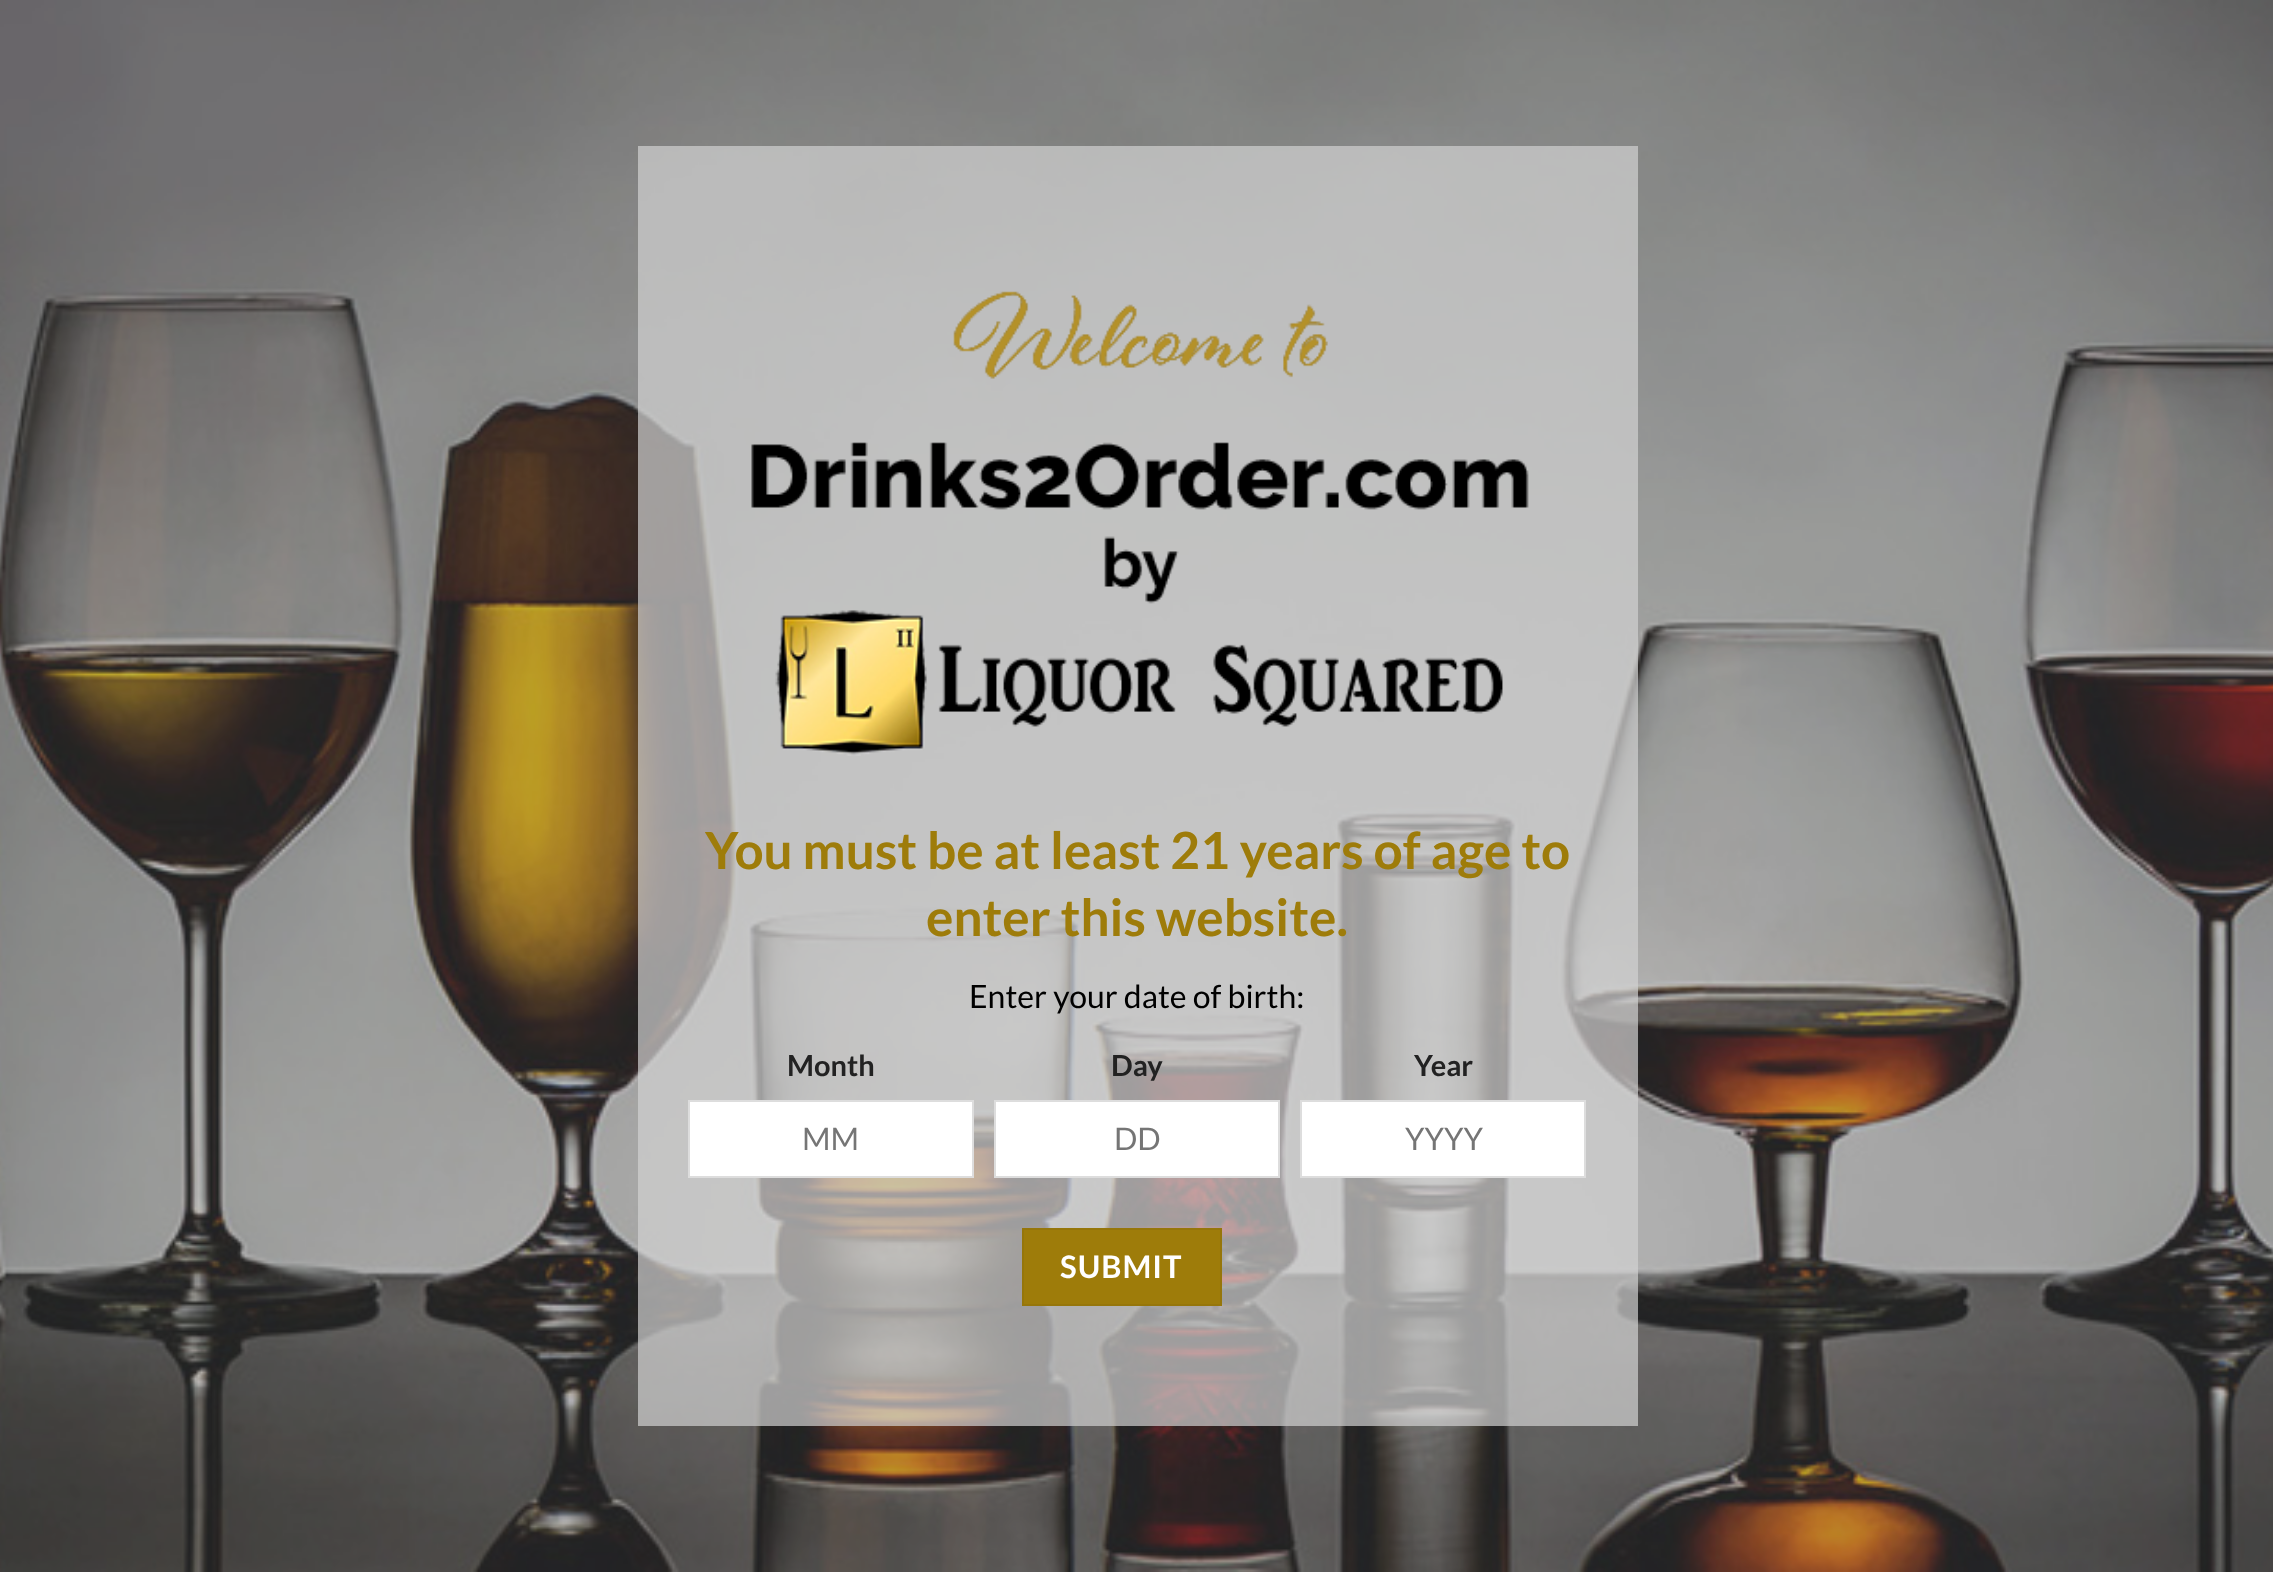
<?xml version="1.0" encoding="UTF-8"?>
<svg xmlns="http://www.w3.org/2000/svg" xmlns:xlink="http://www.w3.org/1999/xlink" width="2273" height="1572">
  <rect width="100%" height="100%" fill="#565656" />
  <image x="0" y="0" width="2273" height="1572" xlink:href="image1.png" />
  <rect x="638" y="146" width="1000" height="1280" fill="#d1d1d1" fill-opacity="0.7" />
  <image x="751" y="291" width="778" height="465" xlink:href="image2.png" />
  <rect x="689" y="1101" width="284" height="76" fill="#ffffff" stroke="#dddddd" stroke-width="2" />
  <rect x="995" y="1101" width="284" height="76" fill="#ffffff" stroke="#dddddd" stroke-width="2" />
  <rect x="1301" y="1101" width="284" height="76" fill="#ffffff" stroke="#dddddd" stroke-width="2" />
  <rect x="1023" y="1229" width="198" height="76" fill="#9e7c0a" stroke="#96760a" stroke-width="2" />
  <text x="705" y="869" style="font-family: Lato; font-size: 51.25px; font-weight: bold; fill: #9e7c0a">You must be at least 21 years of age to</text>
  <text x="926" y="936" style="font-family: Lato; font-size: 51.25px; font-weight: bold; fill: #9e7c0a">enter this website.</text>
  <text x="969" y="1008" style="font-family: Lato; font-size: 32px; fill: #000000">Enter your date of birth:</text>
  <text x="787" y="1076" style="font-family: Lato; font-size: 29px; font-weight: bold; fill: #222222">Month</text>
  <text x="802" y="1150" style="font-family: Lato; font-size: 31px; fill: #757575">MM</text>
  <text x="1111" y="1076" style="font-family: Lato; font-size: 29px; font-weight: bold; fill: #222222">Day</text>
  <text x="1114" y="1150" style="font-family: Lato; font-size: 31px; fill: #757575">DD</text>
  <text x="1414" y="1076" style="font-family: Lato; font-size: 29px; font-weight: bold; fill: #222222">Year</text>
  <text x="1405" y="1150" style="font-family: Lato; font-size: 31px; fill: #757575">YYYY</text>
  <text x="1060" y="1278" style="font-family: Lato; font-size: 31px; font-weight: bold; letter-spacing: 1px; fill: #ffffff">SUBMIT</text>
</svg>
